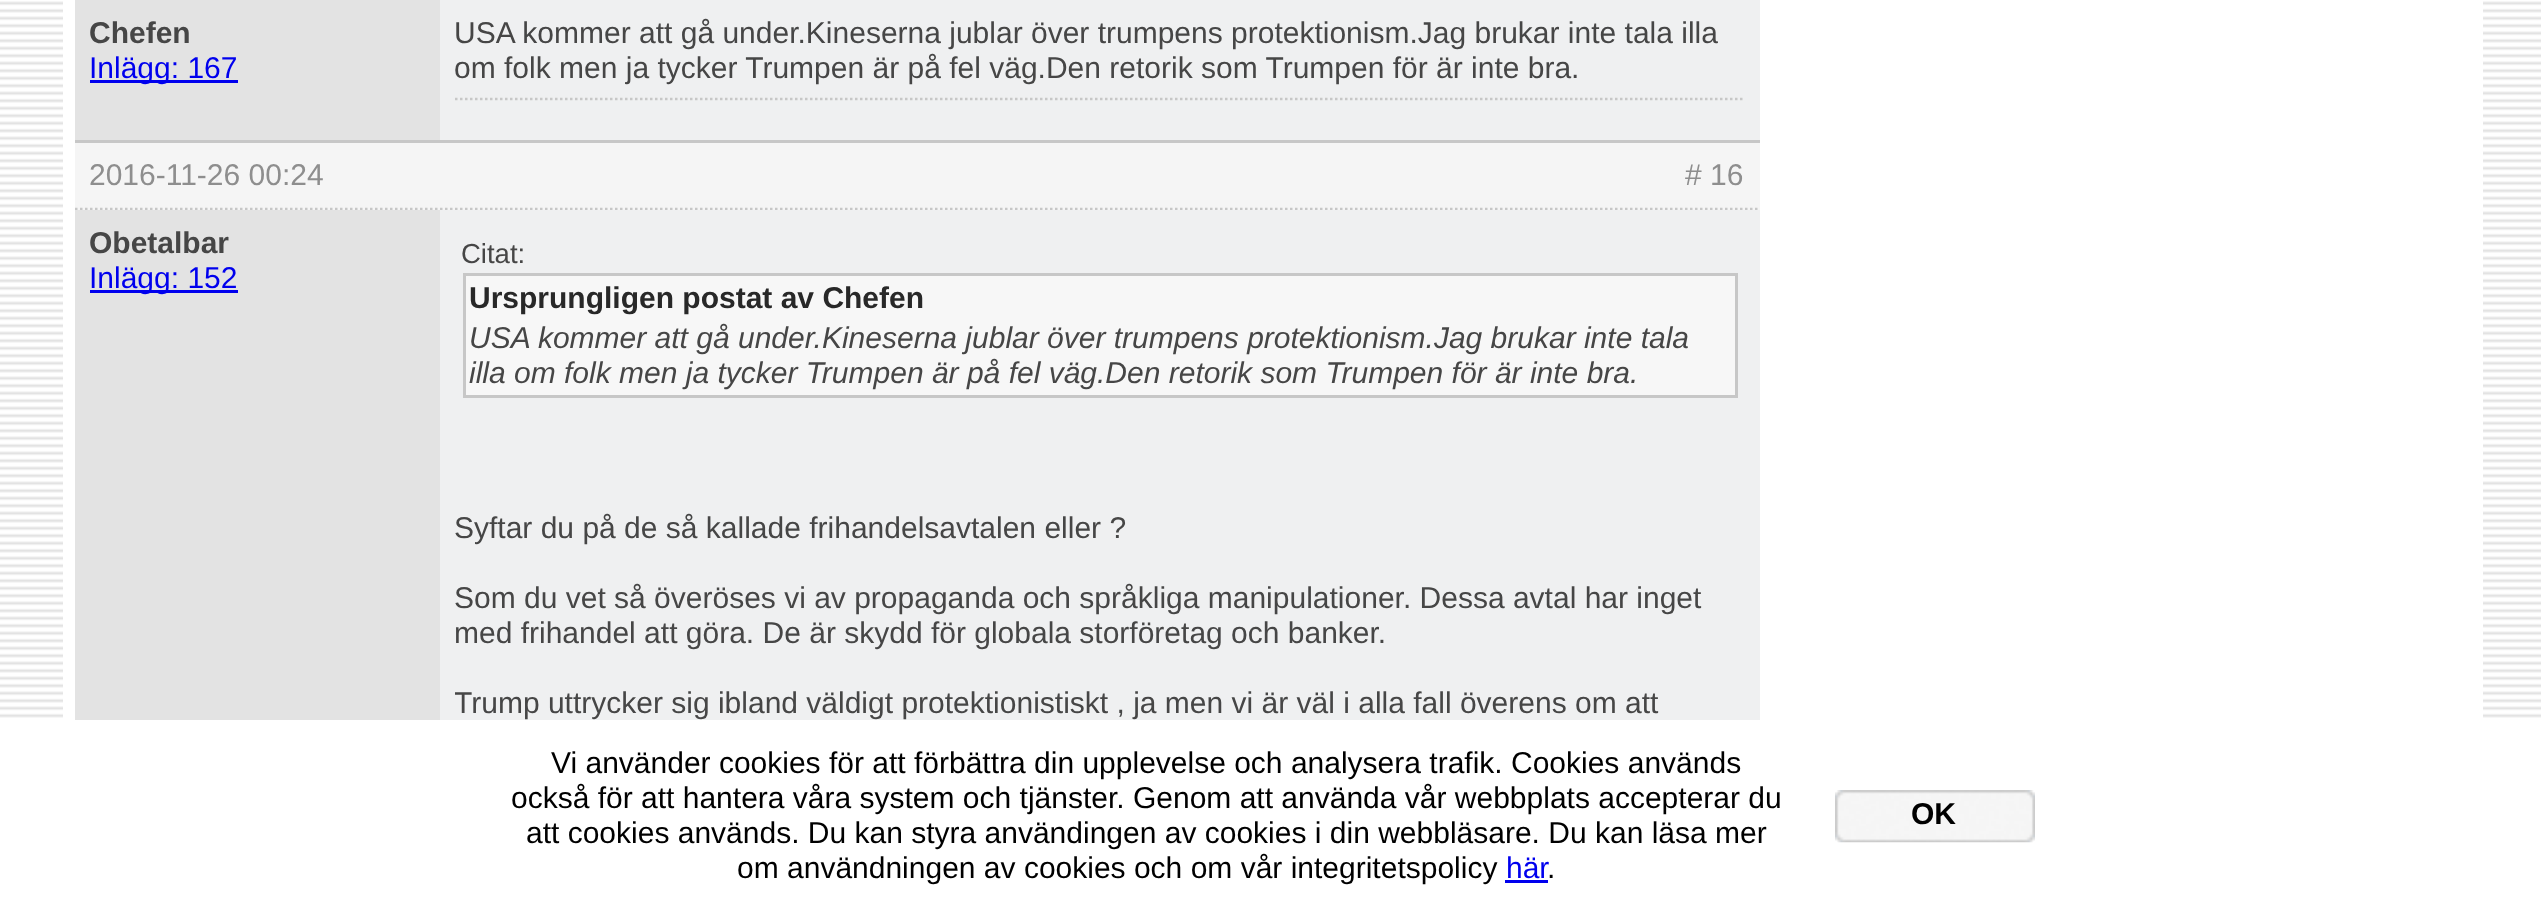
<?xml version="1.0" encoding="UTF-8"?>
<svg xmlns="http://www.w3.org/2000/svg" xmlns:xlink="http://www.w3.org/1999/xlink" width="2541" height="909">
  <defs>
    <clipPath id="clip1"><rect x="455" y="225" width="1290" height="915" /></clipPath>
  </defs>
  <rect width="100%" height="100%" fill="#ffffff" />
  <image x="0" y="1" width="2541" height="719" xlink:href="image1.png" />
  <rect x="63" y="1" width="2420" height="717" fill="#ffffff" />
  <rect x="75" width="365" height="140" fill="#e3e3e3" />
  <rect x="90" y="80" width="148" height="3" fill="#0000ee" />
  <rect x="440" width="1320" height="140" fill="#eff0f1" />
  <path d="M 455 99 h 1290" fill="none" stroke="#c7c7c7" stroke-width="2.5" stroke-dasharray="2.5 2.5" />
  <rect x="75" y="143" width="1685" height="67" fill="#f5f5f5" />
  <rect x="75" y="140" width="1685" height="3" fill="#c7c7c7" />
  <path d="M 75 209 h 1530" fill="none" stroke="#c7c7c7" stroke-width="2.5" stroke-dasharray="2.5 2.5" />
  <path d="M 1605 209 h 155" fill="none" stroke="#c7c7c7" stroke-width="2.5" stroke-dasharray="2.5 2.5" />
  <rect x="75" y="210" width="365" height="510" fill="#e3e3e3" />
  <rect x="90" y="290" width="148" height="3" fill="#0000ee" />
  <rect x="440" y="210" width="1320" height="510" fill="#eff0f1" />
  <rect x="464.5" y="274.5" width="1272" height="122" fill="#f7f7f7" stroke="#c7c7c7" stroke-width="3" />
  <rect x="1505" y="880" width="43" height="3" fill="#0000ee" />
  <image x="1835" y="790" width="200" height="53" xlink:href="image2.png" />
  <text x="89" y="43" style="font-family: Liberation Sans; font-size: 30px; font-weight: bold; fill: #464646">Chefen</text>
  <text x="89" y="78" style="font-family: Liberation Sans; font-size: 30px; fill: #0000ee">Inlägg: 167</text>
  <text x="454" y="43" style="font-family: Liberation Sans; font-size: 30px; fill: #464646">USA kommer att gå under.Kineserna jublar över trumpens protektionism.Jag brukar inte tala illa</text>
  <text x="454" y="78" style="font-family: Liberation Sans; font-size: 30px; fill: #464646">om folk men ja tycker Trumpen är på fel väg.Den retorik som Trumpen för är inte bra.</text>
  <text x="89" y="185" style="font-family: Liberation Sans; font-size: 30px; fill: #8e8e8e">2016-11-26 00:24</text>
  <text x="1685" y="185" style="font-family: Liberation Sans; font-size: 30px; fill: #8e8e8e"># 16</text>
  <text x="89" y="253" style="font-family: Liberation Sans; font-size: 30px; font-weight: bold; fill: #464646">Obetalbar</text>
  <text x="89" y="288" style="font-family: Liberation Sans; font-size: 30px; fill: #0000ee">Inlägg: 152</text>
  <text x="461" y="263" style="font-family: Liberation Sans; font-size: 27.5px; fill: #464646">Citat:</text>
  <text x="469" y="308" style="font-family: Liberation Sans; font-size: 30px; font-weight: bold; fill: #282828">Ursprungligen postat av Chefen</text>
  <text x="469" y="348" style="font-family: Liberation Sans; font-size: 30px; font-style: italic; fill: #464646">USA kommer att gå under.Kineserna jublar över trumpens protektionism.Jag brukar inte tala</text>
  <text x="469" y="383" style="font-family: Liberation Sans; font-size: 30px; font-style: italic; fill: #464646">illa om folk men ja tycker Trumpen är på fel väg.Den retorik som Trumpen för är inte bra.</text>
  <text x="454" y="538" style="font-family: Liberation Sans; font-size: 30px; fill: #464646">Syftar du på de så kallade frihandelsavtalen eller ?</text>
  <text x="454" y="608" style="font-family: Liberation Sans; font-size: 30px; fill: #464646">Som du vet så överöses vi av propaganda och språkliga manipulationer. Dessa avtal har inget</text>
  <text x="454" y="643" style="font-family: Liberation Sans; font-size: 30px; fill: #464646">med frihandel att göra. De är skydd för globala storföretag och banker.</text>
  <g clip-path="url(#clip1)">
    <text x="454" y="713" style="font-family: Liberation Sans; font-size: 30px; fill: #464646">Trump uttrycker sig ibland väldigt protektionistiskt , ja men vi är väl i alla fall överens om att</text>
  </g>
  <text x="551" y="773" style="font-family: Liberation Sans; font-size: 30px; fill: #000000">Vi använder cookies för att förbättra din upplevelse och analysera trafik. Cookies används</text>
  <text x="511" y="808" style="font-family: Liberation Sans; font-size: 30px; fill: #000000">också för att hantera våra system och tjänster. Genom att använda vår webbplats accepterar du</text>
  <text x="526" y="843" style="font-family: Liberation Sans; font-size: 30px; fill: #000000">att cookies används. Du kan styra användingen av cookies i din webbläsare. Du kan läsa mer</text>
  <text x="737" y="878" style="font-family: Liberation Sans; font-size: 30px; fill: #000000">om användningen av cookies och om vår integritetspolicy</text>
  <text x="1506" y="878" style="font-family: Liberation Sans; font-size: 30px; fill: #0000ee">här</text>
  <text x="1547" y="878" style="font-family: Liberation Sans; font-size: 30px; fill: #000000">.</text>
  <text x="1911" y="824" style="font-family: Liberation Sans; font-size: 30px; font-weight: bold; fill: #000000">OK</text>
</svg>
